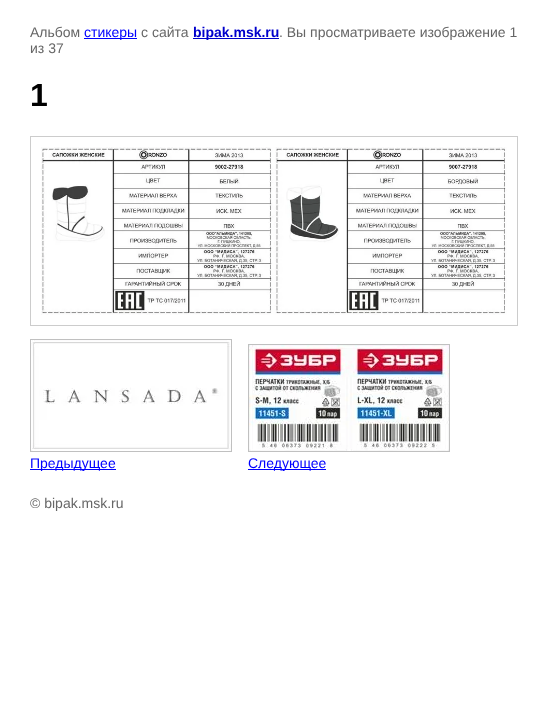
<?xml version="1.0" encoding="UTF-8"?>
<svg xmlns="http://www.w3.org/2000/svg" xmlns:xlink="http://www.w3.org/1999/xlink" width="548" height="726">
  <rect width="100%" height="100%" fill="#ffffff" />
  <rect x="84" y="38" width="53" height="1" fill="#0000ff" />
  <rect x="193" y="38" width="86" height="1" fill="#0000cc" />
  <rect x="30.5" y="136.5" width="487" height="189" fill="none" stroke="#cccccc" />
  <image x="41" y="147" width="466" height="168" xlink:href="image1.png" />
  <rect x="30.5" y="339.5" width="201" height="112" fill="none" stroke="#c0c0c0" />
  <image x="31" y="340" width="200" height="111" xlink:href="image2.png" />
  <rect x="30" y="469" width="86" height="1" fill="#0000ff" />
  <rect x="248.5" y="344.5" width="201" height="107" fill="none" stroke="#c0c0c0" />
  <image x="249" y="345" width="200" height="106" xlink:href="image3.png" />
  <rect x="248" y="469" width="78" height="1" fill="#0000ff" />
  <text x="30" y="37" style="font-family: Liberation Sans; font-size: 14px; fill: #666666">Альбом</text>
  <text x="84" y="37" style="font-family: Liberation Sans; font-size: 14px; fill: #0000ff">стикеры</text>
  <text x="141" y="37" style="font-family: Liberation Sans; font-size: 14px; fill: #666666">с сайта</text>
  <text x="193" y="37" style="font-family: Liberation Sans; font-size: 14px; font-weight: bold; fill: #0000cc">bipak.msk.ru</text>
  <text x="279" y="37" style="font-family: Liberation Sans; font-size: 14px; fill: #666666">. Вы просматриваете изображение 1</text>
  <text x="30" y="53" style="font-family: Liberation Sans; font-size: 14px; fill: #666666">из 37</text>
  <text x="30" y="106" style="font-family: Liberation Sans; font-size: 32px; font-weight: bold; fill: #000000">1</text>
  <text x="30" y="468" style="font-family: Liberation Sans; font-size: 14px; fill: #0000ff">Предыдущее</text>
  <text x="248" y="468" style="font-family: Liberation Sans; font-size: 14px; fill: #0000ff">Следующее</text>
  <text x="30" y="508" style="font-family: Liberation Sans; font-size: 14px; fill: #666666">© bipak.msk.ru</text>
</svg>
